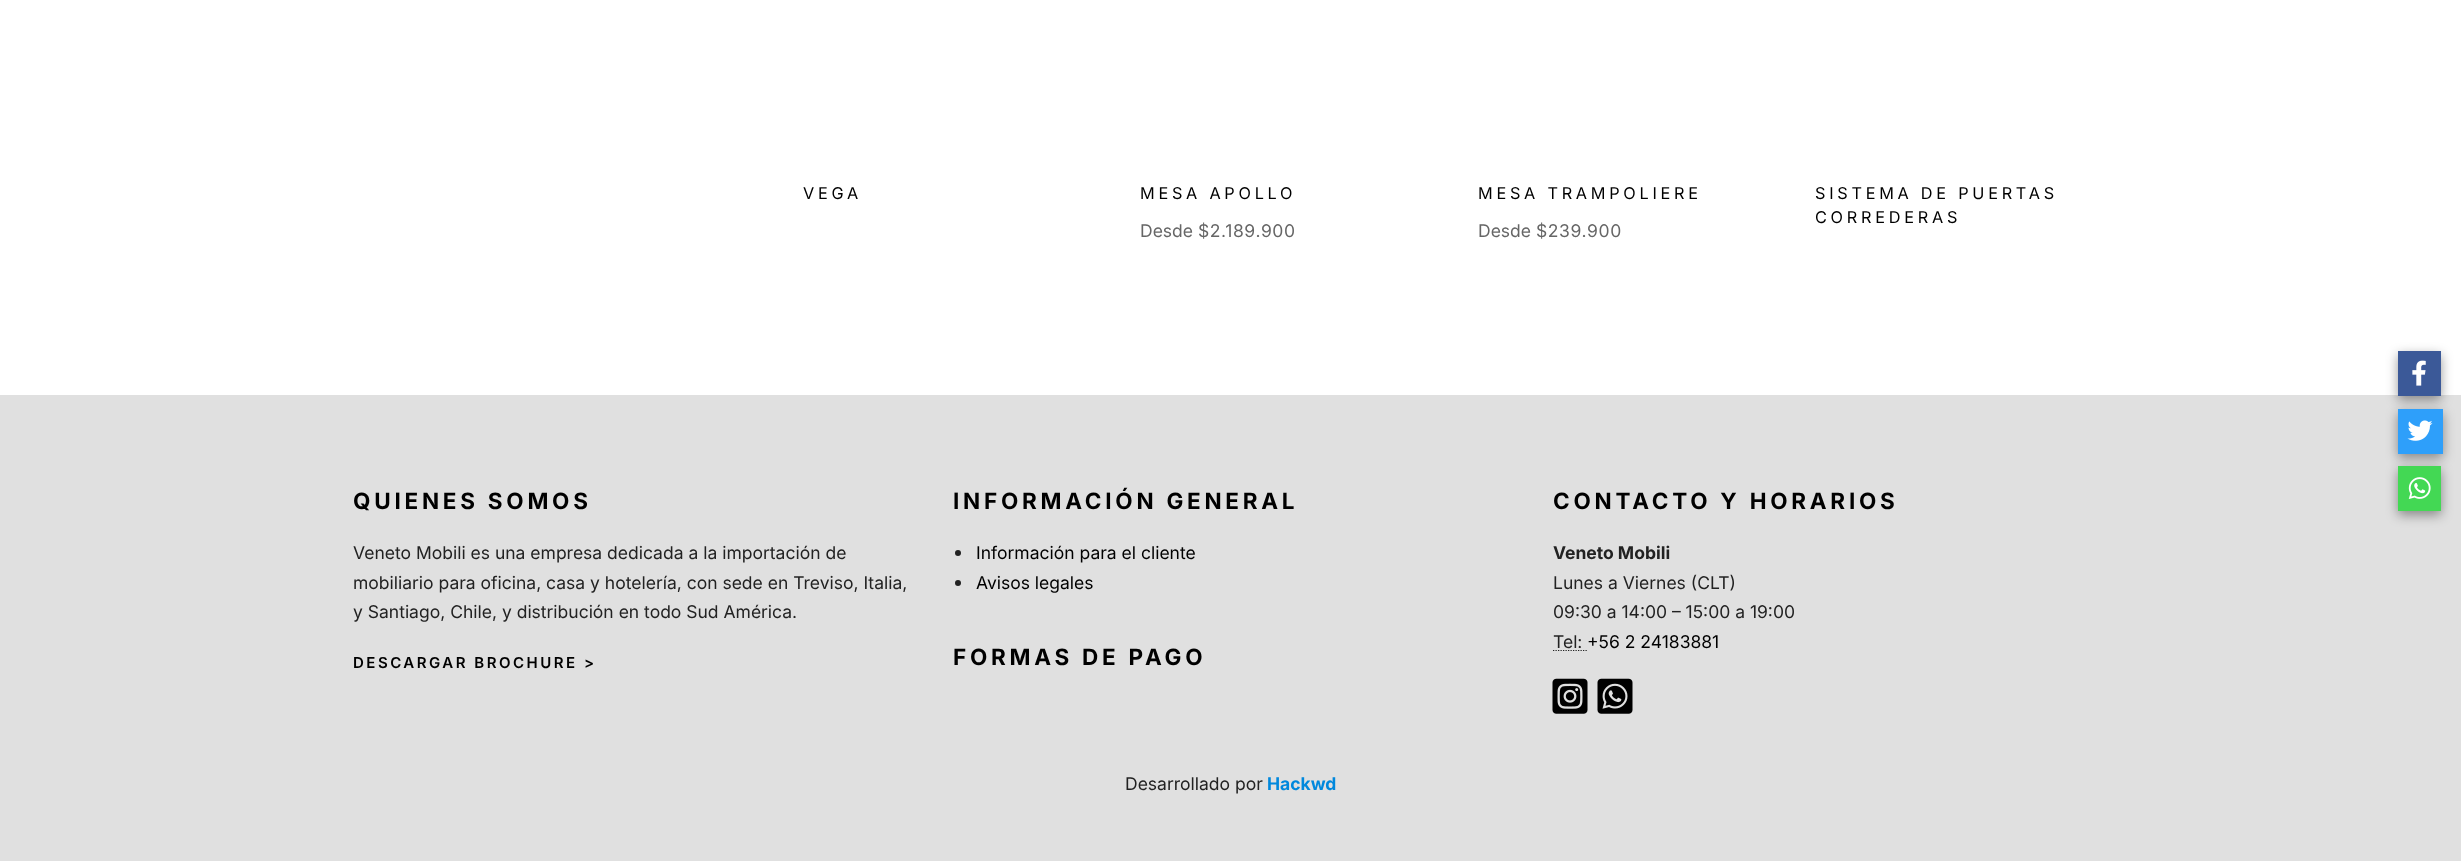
<?xml version="1.0" encoding="UTF-8"?>
<svg xmlns="http://www.w3.org/2000/svg" xmlns:xlink="http://www.w3.org/1999/xlink" width="2461" height="861">
  <rect width="100%" height="100%" fill="#ffffff" />
  <rect y="395" width="2461" height="466" fill="#e0e0e0" />
  <circle cx="958" cy="553" r="3" fill="#222222" />
  <circle cx="958" cy="583" r="3" fill="#222222" />
  <path d="M 1553 650.5 h 34.5" fill="none" stroke="#222222" stroke-width="1.2" stroke-dasharray="1.25 1.25" />
  <image x="1552" y="678" width="36" height="36" xlink:href="image1.png" />
  <image x="1597" y="678" width="36" height="36" xlink:href="image2.png" />
  <rect x="2398" y="355" width="43" height="45" fill="#000000" fill-opacity="0.4" filter="blur(6px)" />
  <rect x="2398" y="351" width="43" height="45" fill="#3b5998" />
  <image x="2412" y="360" width="14" height="26" xlink:href="image3.png" />
  <rect x="2398" y="413" width="45" height="45" fill="#000000" fill-opacity="0.4" filter="blur(6px)" />
  <rect x="2398" y="409" width="45" height="45" fill="#2e9ffa" />
  <image x="2407" y="420" width="26" height="21" xlink:href="image4.png" />
  <rect x="2398" y="470" width="43" height="45" fill="#000000" fill-opacity="0.4" filter="blur(6px)" />
  <rect x="2398" y="466" width="43" height="45" fill="#43d854" />
  <image x="2408" y="477" width="23" height="22" xlink:href="image5.png" />
  <text x="803" y="199" style="font-family: Inter; font-size: 16.25px; letter-spacing: 3.75px; fill: #000000">VEGA</text>
  <text x="1140" y="199" style="font-family: Inter; font-size: 16.25px; letter-spacing: 3.75px; fill: #000000">MESA APOLLO</text>
  <text x="1140" y="237" style="font-family: Inter; font-size: 17.5px; fill: #666666">Desde</text>
  <text x="1198" y="237" style="font-family: Inter; font-size: 17.5px; letter-spacing: 0.6px; fill: #666666">$2.189.900</text>
  <text x="1478" y="199" style="font-family: Inter; font-size: 16.25px; letter-spacing: 3.75px; fill: #000000">MESA TRAMPOLIERE</text>
  <text x="1478" y="237" style="font-family: Inter; font-size: 17.5px; fill: #666666">Desde</text>
  <text x="1536" y="237" style="font-family: Inter; font-size: 17.5px; letter-spacing: 0.6px; fill: #666666">$239.900</text>
  <text x="1815" y="199" style="font-family: Inter; font-size: 16.25px; letter-spacing: 3.75px; fill: #000000">SISTEMA DE PUERTAS</text>
  <text x="1815" y="223" style="font-family: Inter; font-size: 16.25px; letter-spacing: 3.75px; fill: #000000">CORREDERAS</text>
  <text x="353" y="509" style="font-family: Inter; font-size: 22.5px; font-weight: bold; letter-spacing: 3.75px; fill: #000000">QUIENES SOMOS</text>
  <text x="353" y="559" style="font-family: Inter; font-size: 17.5px; fill: #222222">Veneto Mobili es una empresa dedicada a la importación de</text>
  <text x="353" y="589" style="font-family: Inter; font-size: 17.5px; fill: #222222">mobiliario para oficina, casa y hotelería, con sede en Treviso, Italia,</text>
  <text x="353" y="618" style="font-family: Inter; font-size: 17.5px; fill: #222222">y Santiago, Chile, y distribución en todo Sud América.</text>
  <text x="353" y="668" style="font-family: Inter; font-size: 15px; font-weight: 600; letter-spacing: 2.5px; fill: #000000">DESCARGAR BROCHURE &gt;</text>
  <text x="953" y="509" style="font-family: Inter; font-size: 22.5px; font-weight: bold; letter-spacing: 3.75px; fill: #000000">INFORMACIÓN GENERAL</text>
  <text x="976" y="559" style="font-family: Inter; font-size: 17.5px; fill: #000000">Información para el cliente</text>
  <text x="976" y="589" style="font-family: Inter; font-size: 17.5px; fill: #000000">Avisos legales</text>
  <text x="953" y="665" style="font-family: Inter; font-size: 22.5px; font-weight: bold; letter-spacing: 3.75px; fill: #000000">FORMAS DE PAGO</text>
  <text x="1553" y="509" style="font-family: Inter; font-size: 22.5px; font-weight: bold; letter-spacing: 3.75px; fill: #000000">CONTACTO Y HORARIOS</text>
  <text x="1553" y="559" style="font-family: Inter; font-size: 17.5px; font-weight: bold; fill: #222222">Veneto Mobili</text>
  <text x="1553" y="589" style="font-family: Inter; font-size: 17.5px; fill: #222222">Lunes a Viernes (CLT)</text>
  <text x="1553" y="618" style="font-family: Inter; font-size: 17.5px; fill: #222222">09:30 a 14:00 – 15:00 a 19:00</text>
  <text x="1553" y="648" style="font-family: Inter; font-size: 17.5px; fill: #222222">Tel:</text>
  <text x="1587" y="648" style="font-family: Inter; font-size: 17.5px; fill: #000000">+56 2 24183881</text>
  <text x="1125" y="790" style="font-family: Inter; font-size: 17.5px; fill: #222222">Desarrollado por</text>
  <text x="1267" y="790" style="font-family: Inter; font-size: 17.5px; font-weight: bold; fill: #0088dd">Hackwd</text>
</svg>
